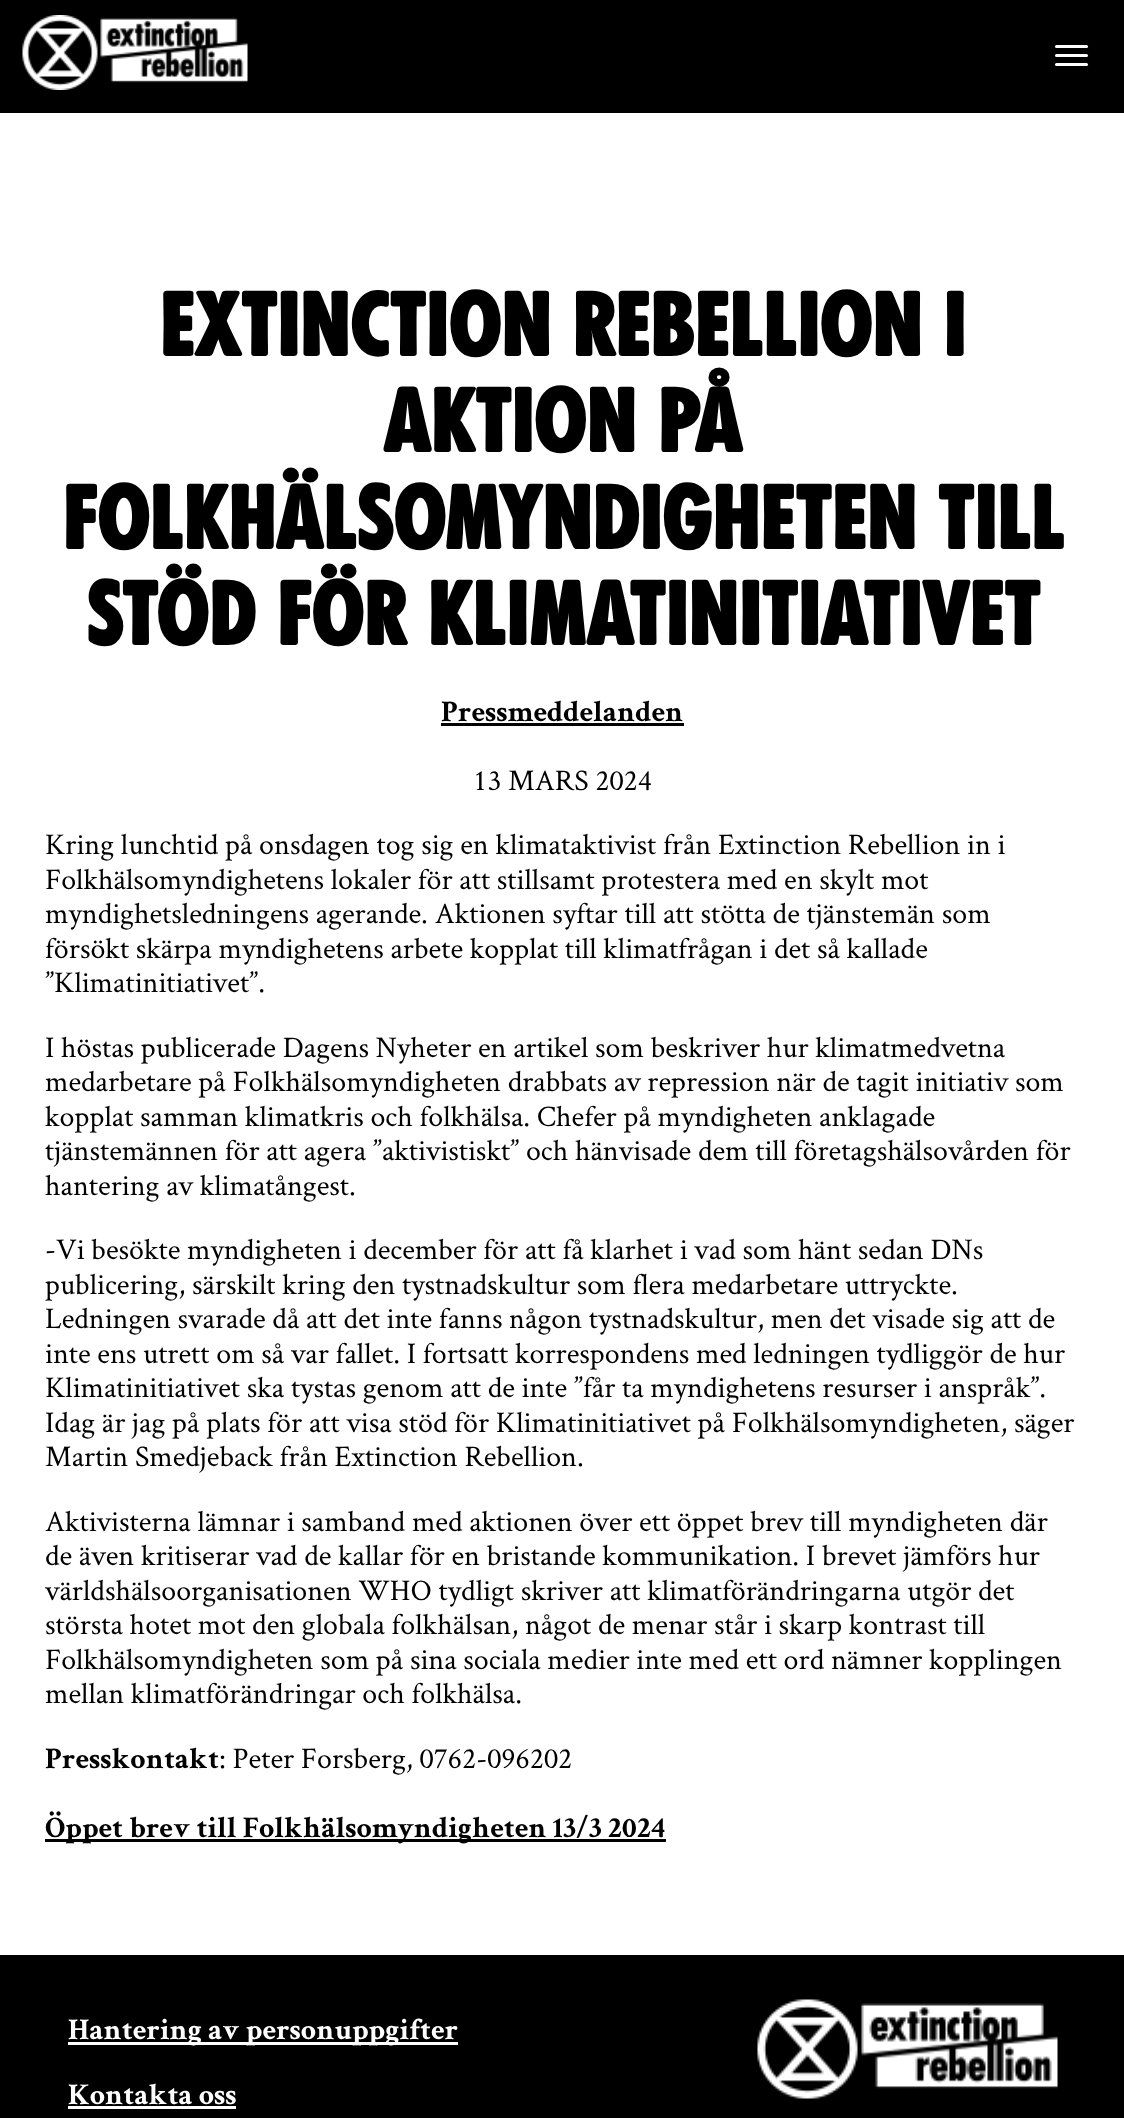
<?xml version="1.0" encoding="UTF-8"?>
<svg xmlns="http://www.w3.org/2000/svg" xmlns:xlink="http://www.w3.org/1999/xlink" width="1124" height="2118">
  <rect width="100%" height="100%" fill="#ffffff" />
  <rect width="1124" height="113" fill="#000000" />
  <image x="22" y="15" width="226" height="75" xlink:href="image1.png" />
  <rect x="1055" y="45" width="33" height="3" rx="1.5" fill="#ffffff" />
  <rect x="1055" y="54" width="33" height="3" rx="1.5" fill="#ffffff" />
  <rect x="1055" y="63" width="33" height="3" rx="1.5" fill="#ffffff" />
  <rect x="441" y="723" width="243" height="3" fill="#000000" />
  <rect x="45" y="1839" width="621" height="3" fill="#000000" />
  <rect y="1955" width="1124" height="163" fill="#000000" />
  <rect x="68" y="2042" width="390" height="3" fill="#ffffff" />
  <rect x="68" y="2106" width="168" height="3" fill="#ffffff" />
  <image x="757" y="1999" width="301" height="100" xlink:href="image2.png" />
  <text x="159" y="356" style="font-family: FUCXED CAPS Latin; font-size: 84px; font-weight: bold; fill: #000000">Extinction Rebellion i</text>
  <text x="383" y="452" style="font-family: FUCXED CAPS Latin; font-size: 84px; font-weight: bold; fill: #000000">aktion på</text>
  <text x="62" y="549" style="font-family: FUCXED CAPS Latin; font-size: 84px; font-weight: bold; fill: #000000">Folkhälsomyndigheten till</text>
  <text x="86" y="645" style="font-family: FUCXED CAPS Latin; font-size: 84px; font-weight: bold; fill: #000000">stöd för Klimatinitiativet</text>
  <text x="441" y="721" style="font-family: Crimson Text; font-size: 30px; font-weight: bold; fill: #000000">Pressmeddelanden</text>
  <text x="473" y="790" style="font-family: Crimson Text; font-size: 30px; fill: #000000">13 MARS 2024</text>
  <text x="45" y="854" style="font-family: Crimson Text; font-size: 30px; fill: #000000">Kring lunchtid på onsdagen tog sig en klimataktivist från Extinction Rebellion in i</text>
  <text x="45" y="889" style="font-family: Crimson Text; font-size: 30px; fill: #000000">Folkhälsomyndighetens lokaler för att stillsamt protestera med en skylt mot</text>
  <text x="45" y="923" style="font-family: Crimson Text; font-size: 30px; fill: #000000">myndighetsledningens agerande. Aktionen syftar till att stötta de tjänstemän som</text>
  <text x="45" y="958" style="font-family: Crimson Text; font-size: 30px; fill: #000000">försökt skärpa myndighetens arbete kopplat till klimatfrågan i det så kallade</text>
  <text x="45" y="992" style="font-family: Crimson Text; font-size: 30px; fill: #000000">”Klimatinitiativet”.</text>
  <text x="45" y="1057" style="font-family: Crimson Text; font-size: 30px; fill: #000000">I höstas publicerade Dagens Nyheter en artikel som beskriver hur klimatmedvetna</text>
  <text x="45" y="1091" style="font-family: Crimson Text; font-size: 30px; fill: #000000">medarbetare på Folkhälsomyndigheten drabbats av repression när de tagit initiativ som</text>
  <text x="45" y="1126" style="font-family: Crimson Text; font-size: 30px; fill: #000000">kopplat samman klimatkris och folkhälsa. Chefer på myndigheten anklagade</text>
  <text x="45" y="1160" style="font-family: Crimson Text; font-size: 30px; fill: #000000">tjänstemännen för att agera ”aktivistiskt” och hänvisade dem till företagshälsovården för</text>
  <text x="45" y="1195" style="font-family: Crimson Text; font-size: 30px; fill: #000000">hantering av klimatångest.</text>
  <text x="45" y="1259" style="font-family: Crimson Text; font-size: 30px; fill: #000000">-Vi besökte myndigheten i december för att få klarhet i vad som hänt sedan DNs</text>
  <text x="45" y="1294" style="font-family: Crimson Text; font-size: 30px; fill: #000000">publicering, särskilt kring den tystnadskultur som flera medarbetare uttryckte.</text>
  <text x="45" y="1328" style="font-family: Crimson Text; font-size: 30px; fill: #000000">Ledningen svarade då att det inte fanns någon tystnadskultur, men det visade sig att de</text>
  <text x="45" y="1363" style="font-family: Crimson Text; font-size: 30px; fill: #000000">inte ens utrett om så var fallet. I fortsatt korrespondens med ledningen tydliggör de hur</text>
  <text x="45" y="1397" style="font-family: Crimson Text; font-size: 30px; fill: #000000">Klimatinitiativet ska tystas genom att de inte ”får ta myndighetens resurser i anspråk”.</text>
  <text x="45" y="1432" style="font-family: Crimson Text; font-size: 30px; fill: #000000">Idag är jag på plats för att visa stöd för Klimatinitiativet på Folkhälsomyndigheten, säger</text>
  <text x="45" y="1466" style="font-family: Crimson Text; font-size: 30px; fill: #000000">Martin Smedjeback från Extinction Rebellion.</text>
  <text x="45" y="1531" style="font-family: Crimson Text; font-size: 30px; fill: #000000">Aktivisterna lämnar i samband med aktionen över ett öppet brev till myndigheten där</text>
  <text x="45" y="1565" style="font-family: Crimson Text; font-size: 30px; fill: #000000">de även kritiserar vad de kallar för en bristande kommunikation. I brevet jämförs hur</text>
  <text x="45" y="1600" style="font-family: Crimson Text; font-size: 30px; fill: #000000">världshälsoorganisationen WHO tydligt skriver att klimatförändringarna utgör det</text>
  <text x="45" y="1634" style="font-family: Crimson Text; font-size: 30px; fill: #000000">största hotet mot den globala folkhälsan, något de menar står i skarp kontrast till</text>
  <text x="45" y="1669" style="font-family: Crimson Text; font-size: 30px; fill: #000000">Folkhälsomyndigheten som på sina sociala medier inte med ett ord nämner kopplingen</text>
  <text x="45" y="1703" style="font-family: Crimson Text; font-size: 30px; fill: #000000">mellan klimatförändringar och folkhälsa.</text>
  <text x="45" y="1768" style="font-family: Crimson Text; font-size: 30px; font-weight: bold; fill: #000000">Presskontakt</text>
  <text x="219" y="1768" style="font-family: Crimson Text; font-size: 30px; fill: #000000">: Peter Forsberg, 0762-096202</text>
  <text x="45" y="1837" style="font-family: Crimson Text; font-size: 30px; font-weight: bold; fill: #000000">Öppet brev till Folkhälsomyndigheten 13/3 2024</text>
  <text x="68" y="2039" style="font-family: Crimson Text; font-size: 30px; font-weight: bold; fill: #ffffff">Hantering av personuppgifter</text>
  <text x="68" y="2104" style="font-family: Crimson Text; font-size: 30px; font-weight: bold; fill: #ffffff">Kontakta oss</text>
</svg>
